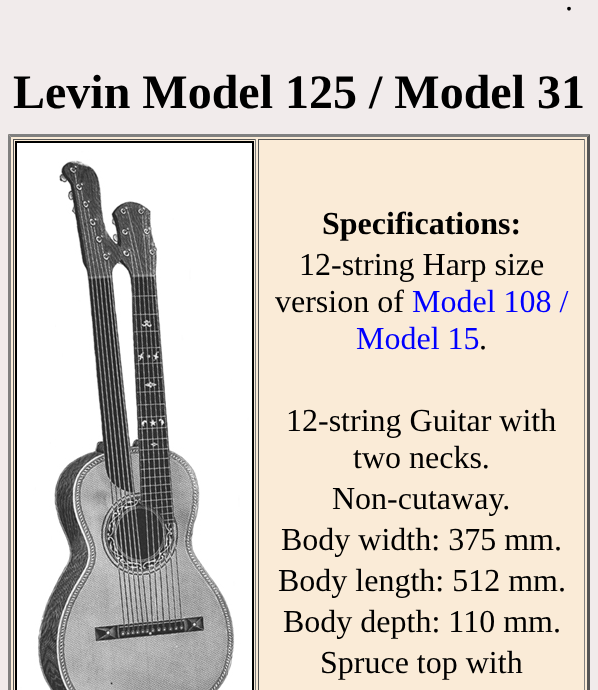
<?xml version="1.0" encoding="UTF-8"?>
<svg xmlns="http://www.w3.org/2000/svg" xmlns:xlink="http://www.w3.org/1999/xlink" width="598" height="690">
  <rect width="100%" height="100%" fill="#f1ebeb" />
  <rect x="8" y="134" width="582" height="556" fill="#faebd7" />
  <path d="M 8 134 h 582 l -3 3 h -576 z" fill="#808080" />
  <path d="M 590 134 v 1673 l -3 -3 v -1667 z" fill="#555555" />
  <path d="M 8 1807 v -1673 l 3 3 v 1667 z" fill="#808080" />
  <rect x="13" y="139" width="243" height="1" fill="#555555" />
  <rect x="255" y="139" width="1" height="551" fill="#808080" />
  <rect x="13" y="139" width="1" height="551" fill="#555555" />
  <rect x="16" y="142" width="237" height="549" fill="none" stroke="#000000" stroke-width="2" />
  <image x="17" y="143" width="235" height="547" xlink:href="image1.png" />
  <rect x="258" y="139" width="327" height="1" fill="#555555" />
  <rect x="584" y="139" width="1" height="551" fill="#808080" />
  <rect x="258" y="139" width="1" height="551" fill="#555555" />
  <text x="565" y="10" style="font-family: Liberation Serif; font-size: 32px; fill: #000000">.</text>
  <text x="13" y="108" style="font-family: Liberation Serif; font-size: 48px; font-weight: bold; fill: #000000">Levin Model 125 / Model 31</text>
  <text x="322" y="234" style="font-family: Liberation Serif; font-size: 32px; font-weight: bold; fill: #000000">Specifications:</text>
  <text x="299" y="275" style="font-family: Liberation Serif; font-size: 32px; fill: #000000">12-string Harp size</text>
  <text x="275" y="312" style="font-family: Liberation Serif; font-size: 32px; fill: #000000">version of</text>
  <text x="412" y="312" style="font-family: Liberation Serif; font-size: 32px; fill: #0000ff">Model 108 /</text>
  <text x="356" y="349" style="font-family: Liberation Serif; font-size: 32px; fill: #0000ff">Model 15</text>
  <text x="479" y="349" style="font-family: Liberation Serif; font-size: 32px; fill: #000000">.</text>
  <text x="286" y="431" style="font-family: Liberation Serif; font-size: 32px; fill: #000000">12-string Guitar with</text>
  <text x="353" y="468" style="font-family: Liberation Serif; font-size: 32px; fill: #000000">two necks.</text>
  <text x="332" y="509" style="font-family: Liberation Serif; font-size: 32px; fill: #000000">Non-cutaway.</text>
  <text x="281" y="550" style="font-family: Liberation Serif; font-size: 32px; fill: #000000">Body width: 375 mm.</text>
  <text x="278" y="591" style="font-family: Liberation Serif; font-size: 32px; fill: #000000">Body length: 512 mm.</text>
  <text x="283" y="632" style="font-family: Liberation Serif; font-size: 32px; fill: #000000">Body depth: 110 mm.</text>
  <text x="320" y="673" style="font-family: Liberation Serif; font-size: 32px; fill: #000000">Spruce top with</text>
</svg>
